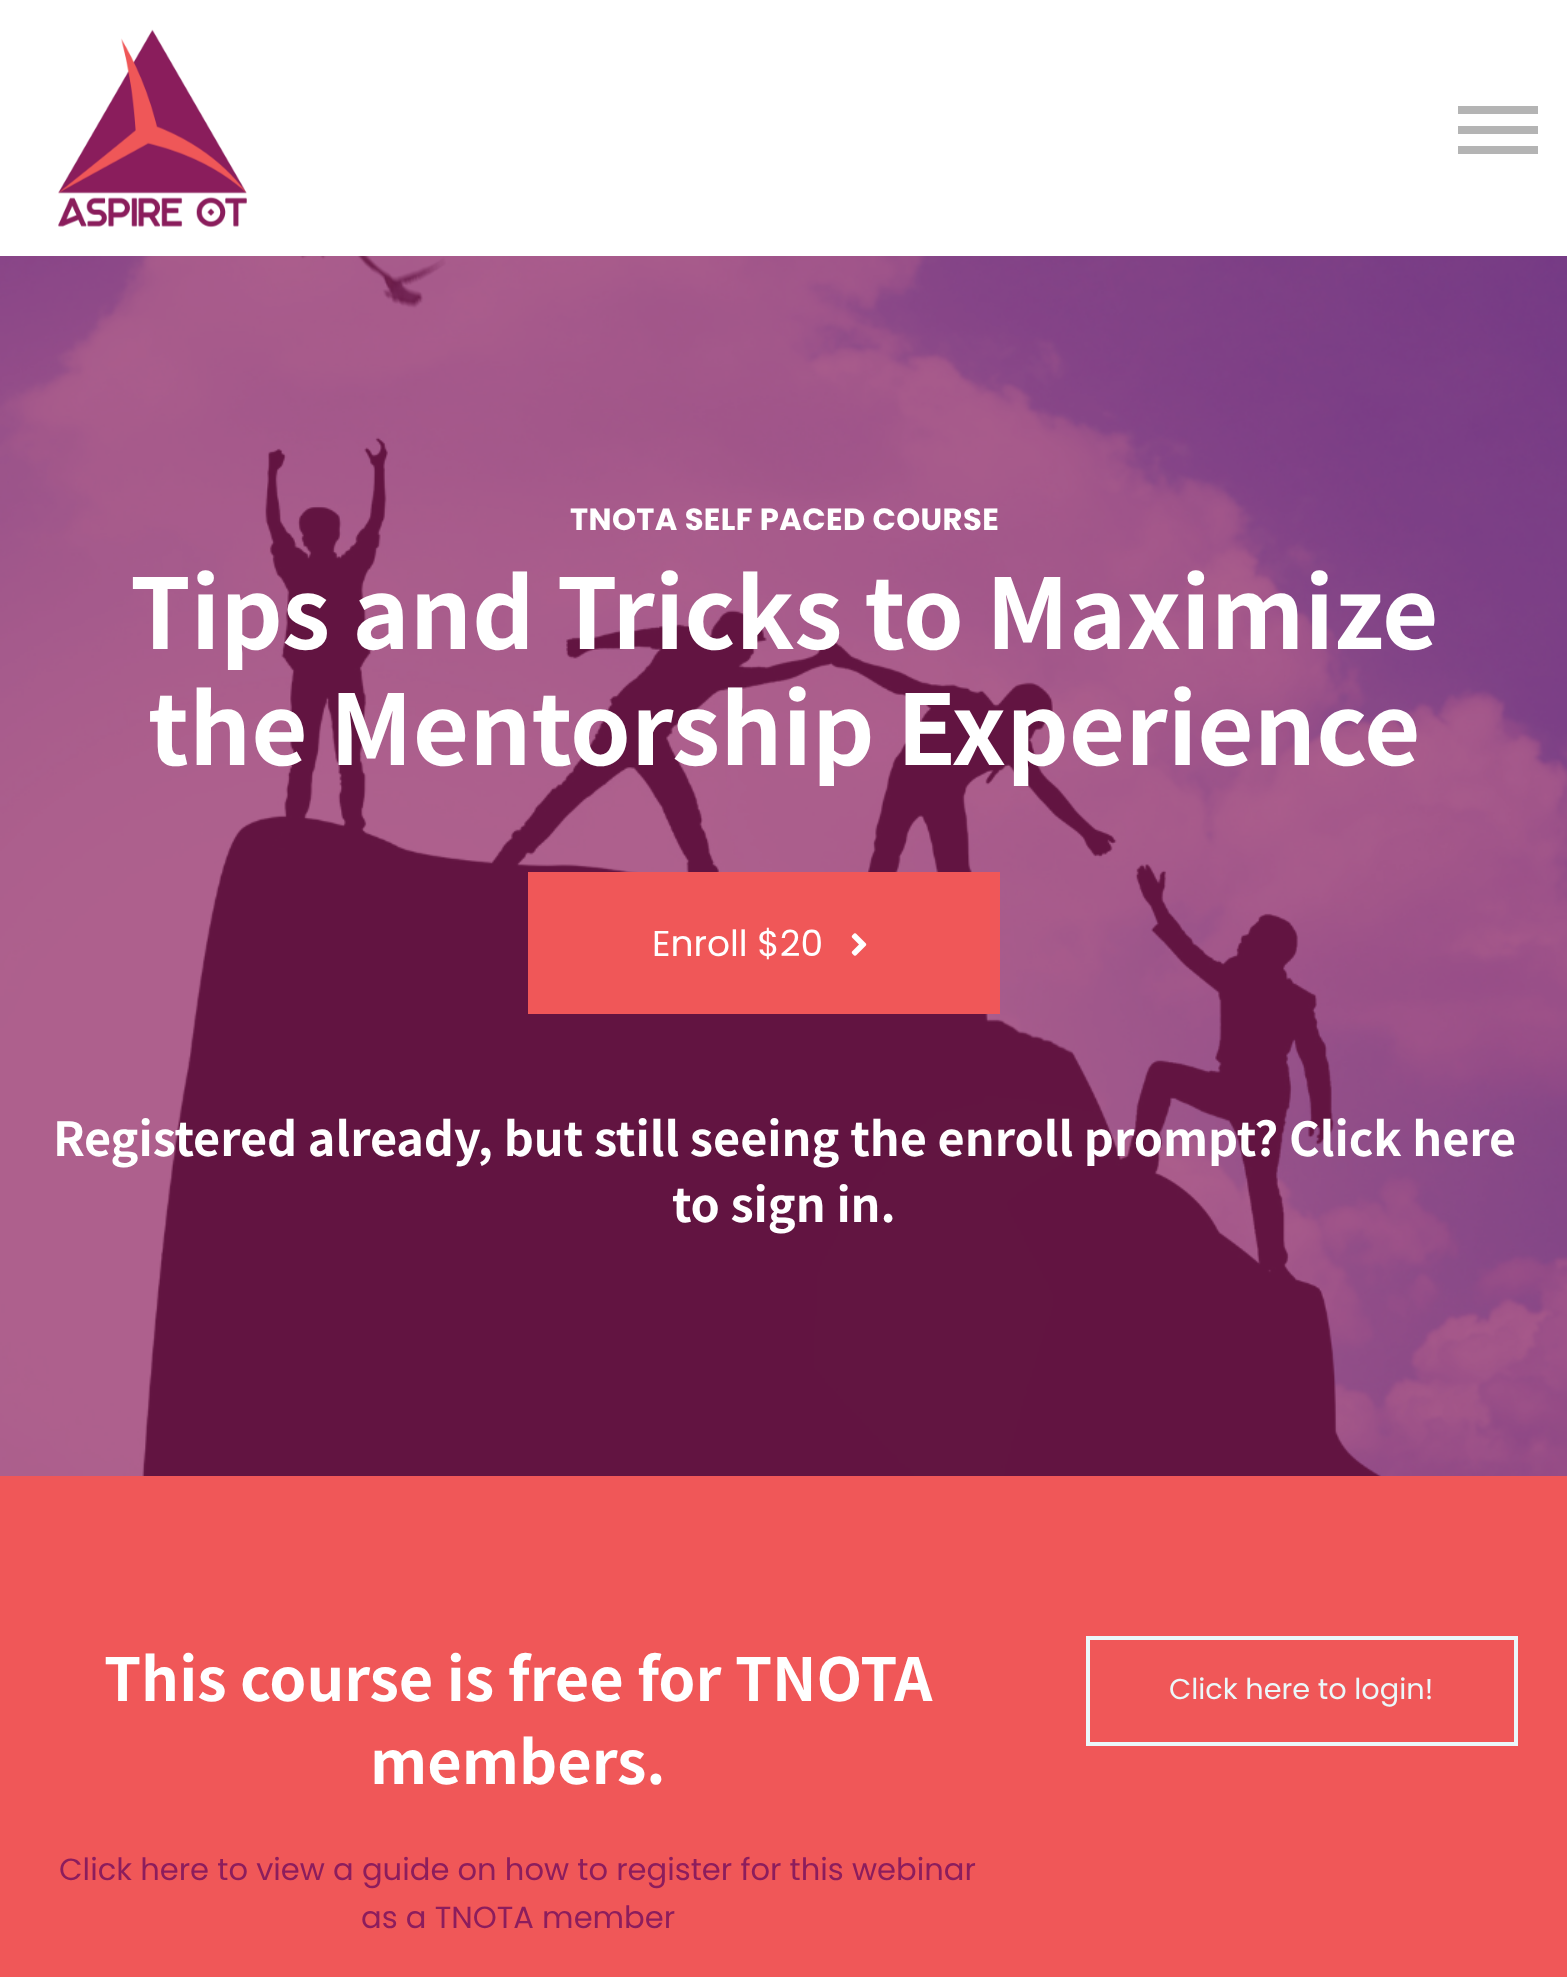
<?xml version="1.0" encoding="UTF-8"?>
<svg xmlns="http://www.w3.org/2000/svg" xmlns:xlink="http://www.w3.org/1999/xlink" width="1567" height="1977">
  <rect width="100%" height="100%" fill="#ffffff" />
  <image x="58" y="29" width="189" height="199" xlink:href="image1.png" />
  <rect x="1458" y="146" width="80" height="8" fill="#b4b4b4" />
  <rect x="1458" y="106" width="80" height="8" fill="#b4b4b4" />
  <rect x="1458" y="126" width="80" height="8" fill="#b4b4b4" />
  <image x="0" y="256" width="1567" height="1220" xlink:href="image2.png" />
  <rect x="528" y="872" width="472" height="142" fill="#f05758" />
  <image x="851" y="933" width="16" height="23" xlink:href="image3.png" />
  <rect y="1476" width="1567" height="501" fill="#f05758" />
  <rect x="1088" y="1638" width="428" height="106" fill="none" stroke="#ebf8fa" stroke-width="4" />
  <text x="570" y="530" style="font-family: Poppins; font-size: 30.6px; font-weight: bold; letter-spacing: 0.4px; fill: #ffffff">TNOTA SELF PACED COURSE</text>
  <text x="130" y="649" style="font-family: Noto Sans JP; font-size: 97.25px; font-weight: bold; fill: #ffffff">Tips and Tricks to Maximize</text>
  <text x="148" y="765" style="font-family: Noto Sans JP; font-size: 97.25px; font-weight: bold; fill: #ffffff">the Mentorship Experience</text>
  <text x="652" y="956" style="font-family: Poppins; font-size: 36px; fill: #ffffff">Enroll $20</text>
  <text x="53" y="1156" style="font-family: Noto Sans JP; font-size: 46.8px; font-weight: bold; fill: #ffffff">Registered already, but still seeing the enroll prompt? Click here</text>
  <text x="672" y="1222" style="font-family: Noto Sans JP; font-size: 46.8px; font-weight: bold; fill: #ffffff">to sign in.</text>
  <text x="104" y="1701" style="font-family: Noto Sans JP; font-size: 59.4px; font-weight: bold; fill: #ffffff">This course is free for TNOTA</text>
  <text x="370" y="1784" style="font-family: Noto Sans JP; font-size: 59.4px; font-weight: bold; fill: #ffffff">members.</text>
  <text x="59" y="1880" style="font-family: Poppins; font-size: 30.6px; fill: #8c1d5d">Click here to view a guide on how to register for this webinar</text>
  <text x="361" y="1928" style="font-family: Poppins; font-size: 30.6px; fill: #8c1d5d">as a TNOTA member</text>
  <text x="1169" y="1699" style="font-family: Poppins; font-size: 28.75px; fill: #ebf8fa">Click here to login!</text>
</svg>
